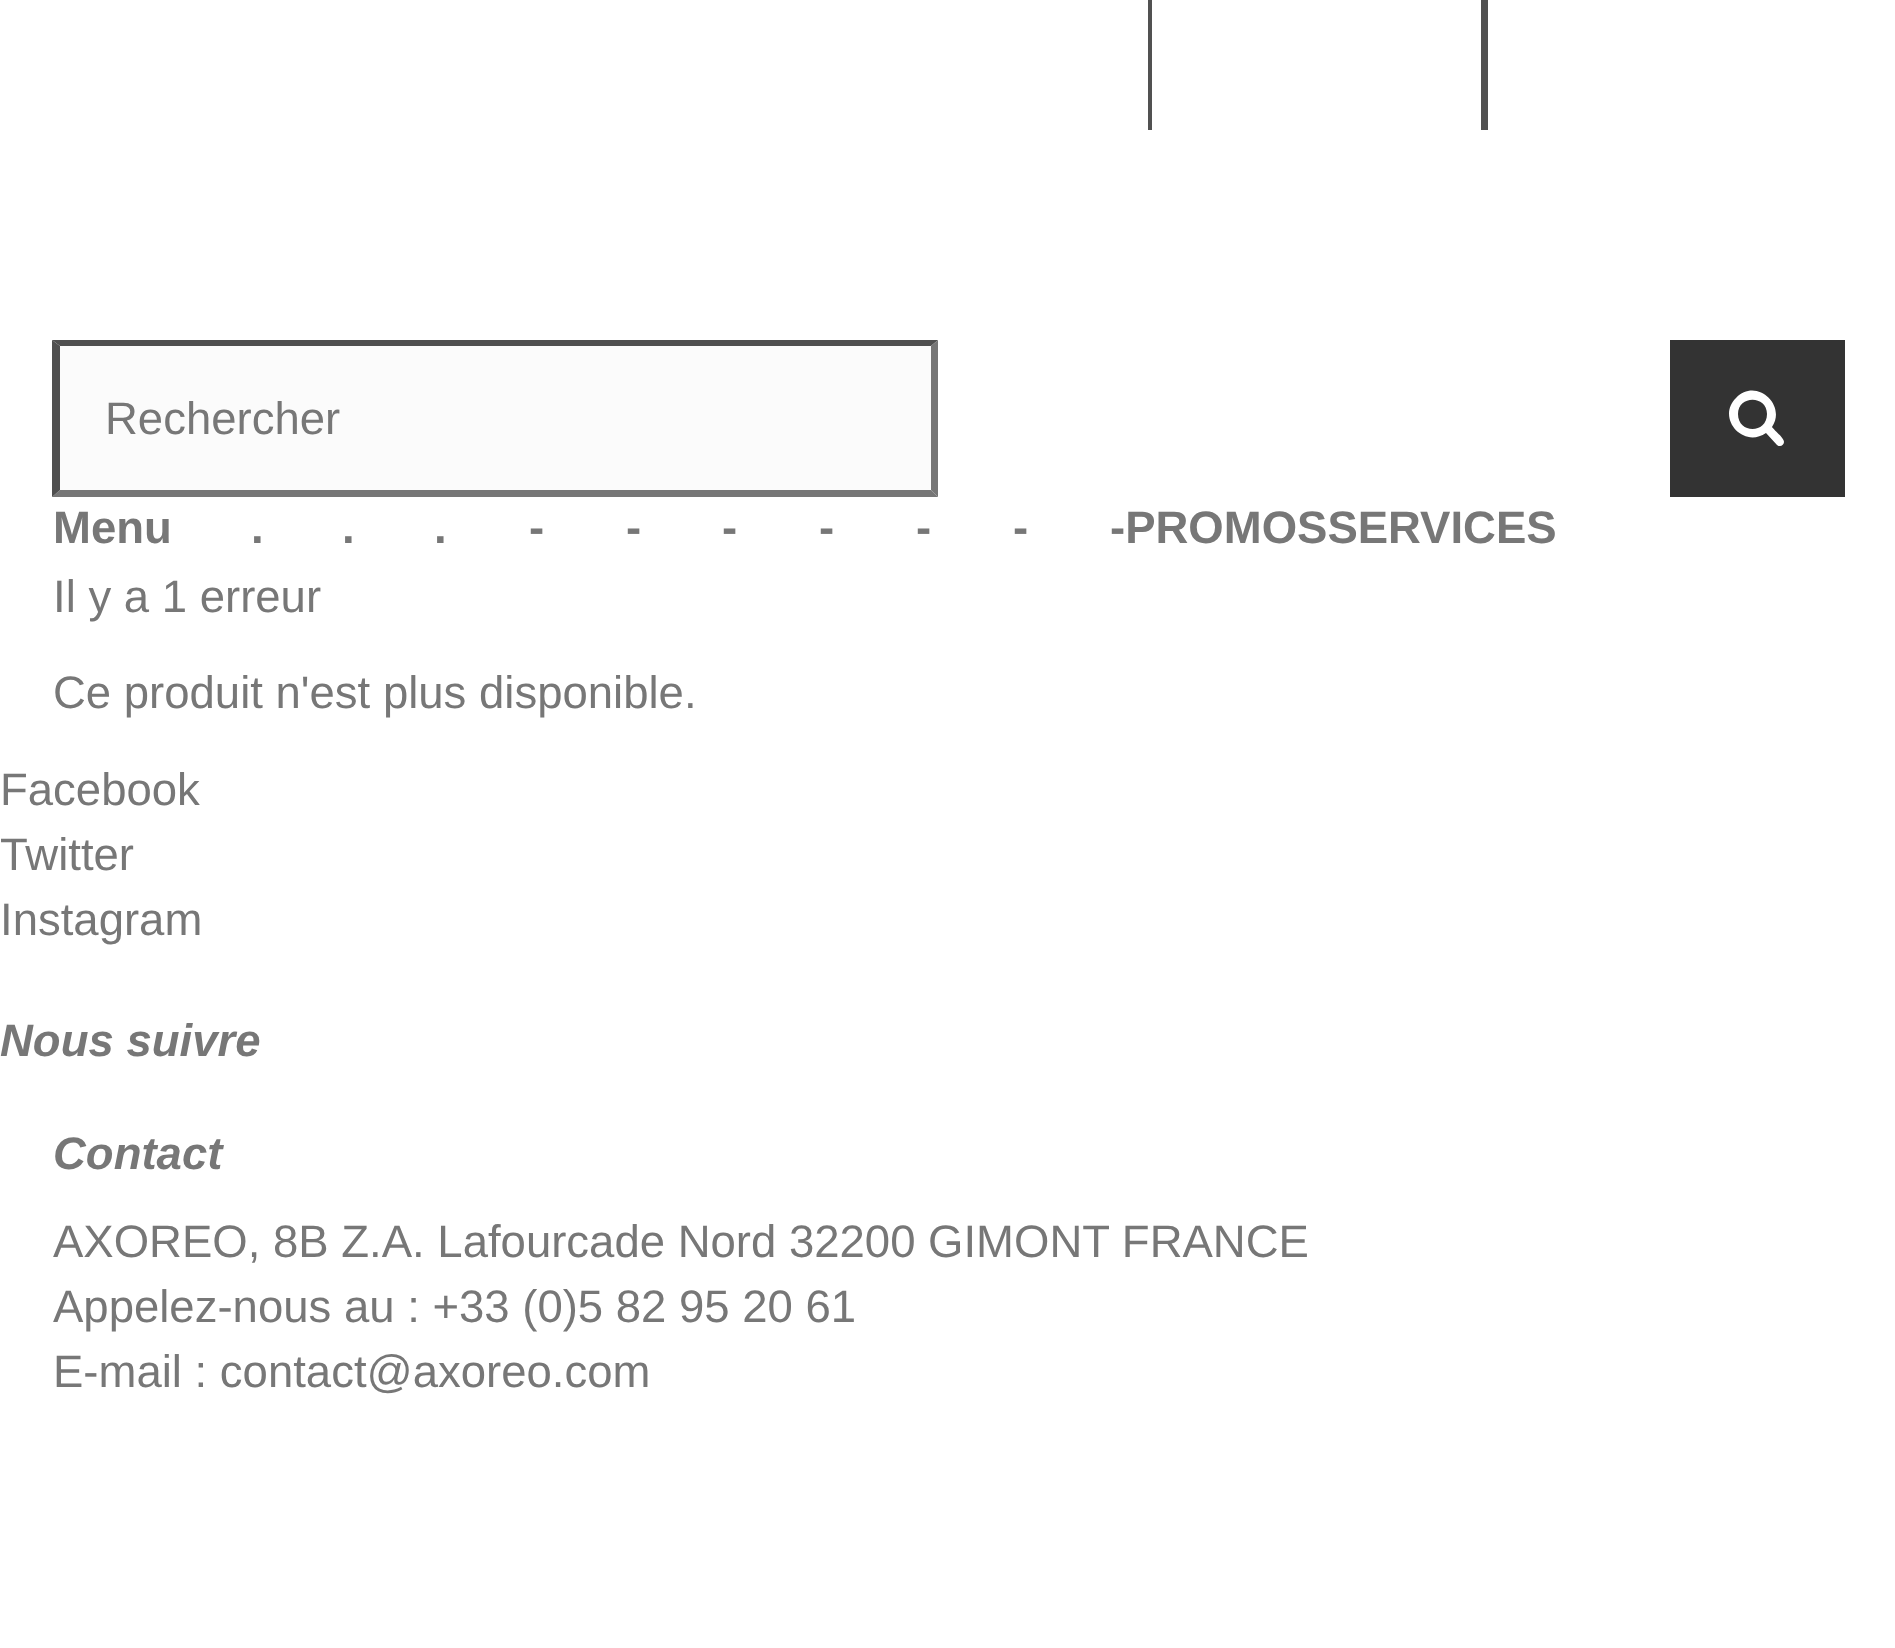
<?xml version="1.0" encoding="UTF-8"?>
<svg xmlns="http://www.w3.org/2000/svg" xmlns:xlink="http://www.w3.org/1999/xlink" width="1895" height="1648">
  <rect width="100%" height="100%" fill="#ffffff" />
  <rect x="1148" width="4" height="130" fill="#515151" />
  <rect x="1481" width="7" height="130" fill="#515151" />
  <rect x="53" y="340" width="885" height="157" fill="#fbfbfb" />
  <path d="M 52 340 h 886 l -7 6 h -871 z" fill="#4f4f4f" />
  <path d="M 938 340 v 157 l -7 -7 v -144 z" fill="#767676" />
  <path d="M 938 497 h -886 l 8 -7 h 871 z" fill="#767676" />
  <path d="M 52 497 v -157 l 8 6 v 144 z" fill="#4f4f4f" />
  <rect x="1670" y="340" width="175" height="157" fill="#333333" />
  <path d="M 1767 414 c 0 20 -29 20 -29 0 c 0 -19 29 -19 29 0 z m 17 28 c 0 -4 -10 -12 -12 -15 c 15 -22 -16 -50 -36 -29 c -20 20 7 51 30 35 l 11 12 c 1 1 2 1 3 1 c 2 0 4 -2 4 -4 z" fill="#ffffff" />
  <text x="105" y="434" style="font-family: Liberation Sans; font-size: 45.5px; fill: #777777">Rechercher</text>
  <text x="53" y="543" style="font-family: Liberation Sans; font-size: 45.5px; font-weight: bold; fill: #777777">Menu</text>
  <text x="529" y="543" style="font-family: Liberation Sans; font-size: 45.5px; font-weight: bold; fill: #777777">-</text>
  <text x="626" y="543" style="font-family: Liberation Sans; font-size: 45.5px; font-weight: bold; fill: #777777">-</text>
  <text x="722" y="543" style="font-family: Liberation Sans; font-size: 45.5px; font-weight: bold; fill: #777777">-</text>
  <text x="819" y="543" style="font-family: Liberation Sans; font-size: 45.5px; font-weight: bold; fill: #777777">-</text>
  <text x="916" y="543" style="font-family: Liberation Sans; font-size: 45.5px; font-weight: bold; fill: #777777">-</text>
  <text x="1013" y="543" style="font-family: Liberation Sans; font-size: 45.5px; font-weight: bold; fill: #777777">-</text>
  <text x="1110" y="543" style="font-family: Liberation Sans; font-size: 45.5px; font-weight: bold; fill: #777777">-PROMOSSERVICES</text>
  <text x="251" y="543" style="font-family: Liberation Sans; font-size: 45.5px; font-weight: bold; fill: #777777">.</text>
  <text x="342" y="543" style="font-family: Liberation Sans; font-size: 45.5px; font-weight: bold; fill: #777777">.</text>
  <text x="434" y="543" style="font-family: Liberation Sans; font-size: 45.5px; font-weight: bold; fill: #777777">.</text>
  <text x="53" y="612" style="font-family: Liberation Sans; font-size: 45.5px; fill: #777777">Il y a 1 erreur</text>
  <text x="53" y="708" style="font-family: Liberation Sans; font-size: 45.5px; fill: #777777">Ce produit n'est plus disponible.</text>
  <text x="0" y="805" style="font-family: Liberation Sans; font-size: 45.5px; fill: #777777">Facebook</text>
  <text x="0" y="870" style="font-family: Liberation Sans; font-size: 45.5px; fill: #777777">Twitter</text>
  <text x="0" y="935" style="font-family: Liberation Sans; font-size: 45.5px; fill: #777777">Instagram</text>
  <text x="0" y="1056" style="font-family: Liberation Sans; font-size: 45.5px; font-weight: bold; font-style: italic; fill: #777777">Nous suivre</text>
  <text x="53" y="1169" style="font-family: Liberation Sans; font-size: 45.5px; font-weight: bold; font-style: italic; fill: #777777">Contact</text>
  <text x="53" y="1257" style="font-family: Liberation Sans; font-size: 45.5px; fill: #777777">AXOREO, 8B Z.A. Lafourcade Nord 32200 GIMONT FRANCE</text>
  <text x="53" y="1322" style="font-family: Liberation Sans; font-size: 45.5px; fill: #777777">Appelez-nous au : +33 (0)5 82 95 20 61</text>
  <text x="53" y="1387" style="font-family: Liberation Sans; font-size: 45.5px; fill: #777777">E-mail : contact@axoreo.com</text>
</svg>
